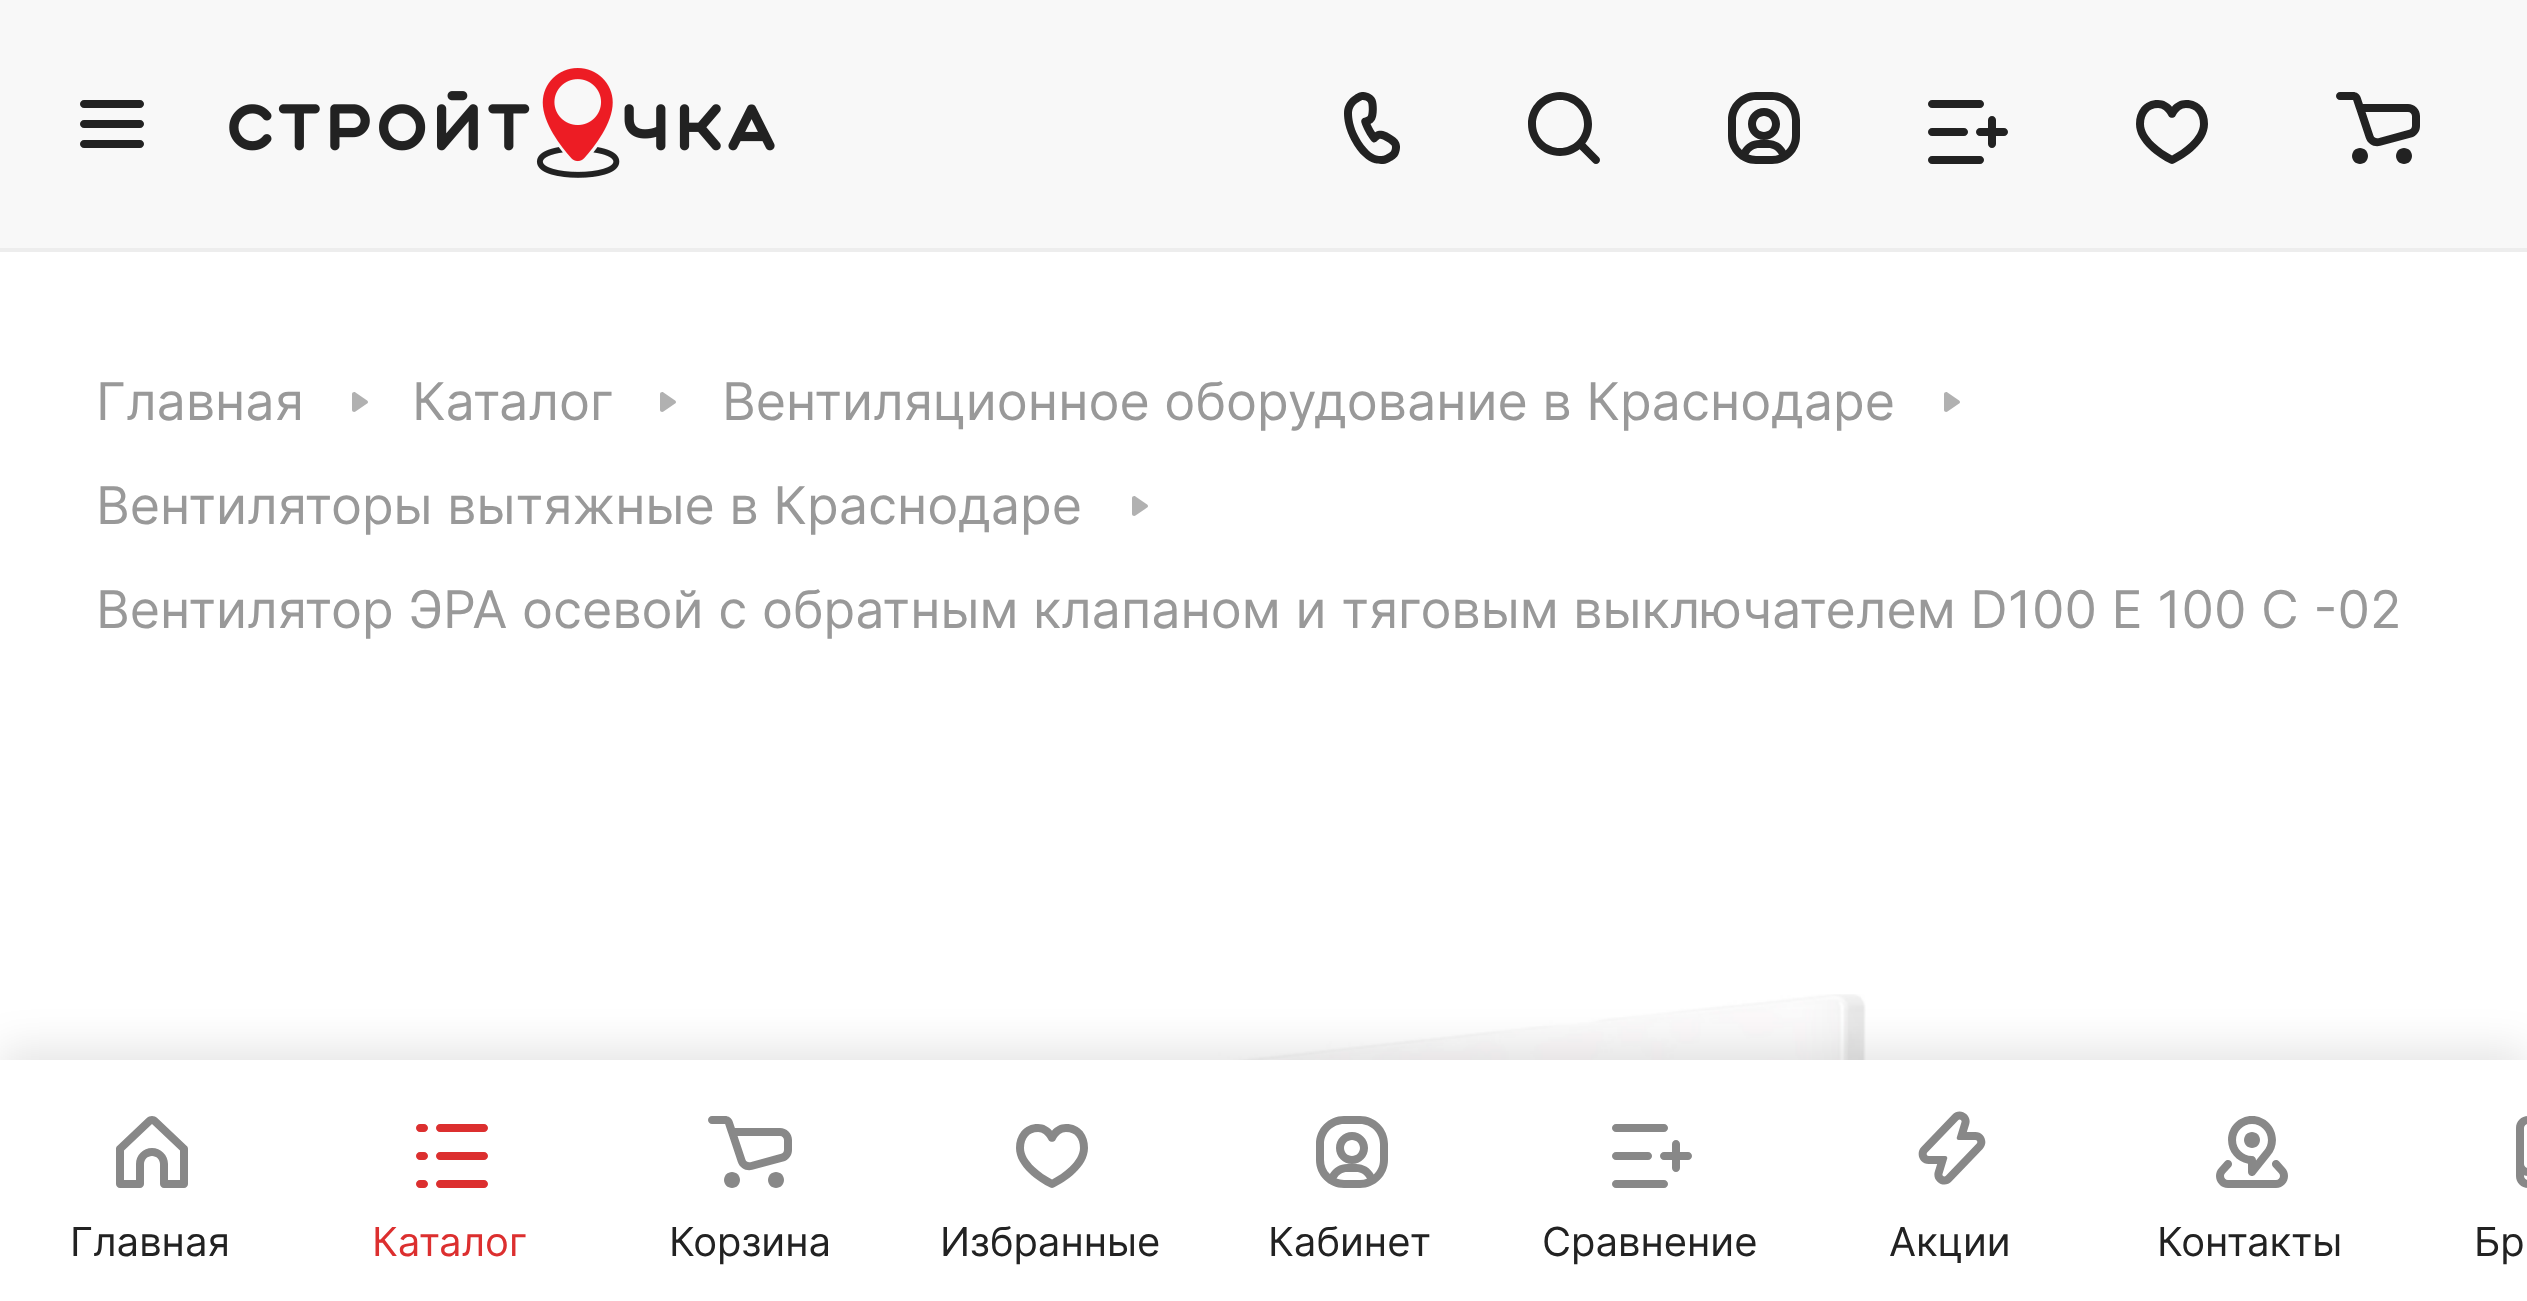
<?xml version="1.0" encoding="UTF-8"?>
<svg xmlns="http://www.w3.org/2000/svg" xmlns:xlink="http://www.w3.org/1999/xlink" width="2527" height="1301">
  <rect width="100%" height="100%" fill="#ffffff" />
  <rect y="248" width="2527" height="4" fill="#ededed" />
  <rect width="2527" height="248" fill="#f8f8f8" />
  <image x="80" y="100" width="64" height="48" xlink:href="image1.png" />
  <image x="229" y="68" width="546" height="110" xlink:href="image2.png" />
  <image x="1344" y="92" width="56" height="72" xlink:href="image3.png" />
  <image x="1528" y="92" width="72" height="72" xlink:href="image4.png" />
  <image x="1728" y="92" width="72" height="72" xlink:href="image5.png" />
  <image x="1928" y="100" width="80" height="64" xlink:href="image6.png" />
  <image x="2136" y="100" width="72" height="64" xlink:href="image7.png" />
  <image x="2336" y="92" width="84" height="72" xlink:href="image8.png" />
  <image x="352" y="392" width="16" height="20" xlink:href="image9.png" />
  <image x="660" y="392" width="16" height="20" xlink:href="image9.png" />
  <image x="1944" y="392" width="16" height="20" xlink:href="image9.png" />
  <image x="1132" y="496" width="16" height="20" xlink:href="image10.png" />
  <image x="652" y="994" width="1214" height="66" xlink:href="image11.png" />
  <rect y="1048" width="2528" height="244" fill="#000000" fill-opacity="0.1" filter="blur(20px)" />
  <rect y="1060" width="2527" height="241" fill="#ffffff" />
  <image x="116" y="1116" width="72" height="72" xlink:href="image12.png" />
  <image x="416" y="1124" width="72" height="64" xlink:href="image13.png" />
  <image x="708" y="1116" width="84" height="72" xlink:href="image14.png" />
  <image x="1016" y="1124" width="72" height="64" xlink:href="image15.png" />
  <image x="1316" y="1116" width="72" height="72" xlink:href="image16.png" />
  <image x="1612" y="1124" width="80" height="64" xlink:href="image17.png" />
  <image x="1918" y="1111" width="68" height="74" xlink:href="image18.png" />
  <image x="2216" y="1116" width="72" height="72" xlink:href="image19.png" />
  <image x="2516" y="1116" width="11" height="72" xlink:href="image20.png" />
  <text x="96" y="420" style="font-family: Inter; font-size: 52px; fill: #999999">Главная</text>
  <text x="412" y="420" style="font-family: Inter; font-size: 52px; fill: #999999">Каталог</text>
  <text x="722" y="420" style="font-family: Inter; font-size: 52px; fill: #999999">Вентиляционное оборудование в Краснодаре</text>
  <text x="96" y="524" style="font-family: Inter; font-size: 52px; fill: #999999">Вентиляторы вытяжные в Краснодаре</text>
  <text x="96" y="628" style="font-family: Inter; font-size: 52px; fill: #999999">Вентилятор ЭРА осевой с обратным клапаном и тяговым выключателем D100 E 100 C -02</text>
  <text x="70" y="1256" style="font-family: Inter; font-size: 40px; fill: #222222">Главная</text>
  <text x="372" y="1256" style="font-family: Inter; font-size: 40px; fill: #dc2f2f">Каталог</text>
  <text x="669" y="1256" style="font-family: Inter; font-size: 40px; fill: #222222">Корзина</text>
  <text x="940" y="1256" style="font-family: Inter; font-size: 40px; fill: #222222">Избранные</text>
  <text x="1268" y="1256" style="font-family: Inter; font-size: 40px; fill: #222222">Кабинет</text>
  <text x="1542" y="1256" style="font-family: Inter; font-size: 40px; fill: #222222">Сравнение</text>
  <text x="1889" y="1256" style="font-family: Inter; font-size: 40px; fill: #222222">Акции</text>
  <text x="2157" y="1256" style="font-family: Inter; font-size: 40px; fill: #222222">Контакты</text>
  <text x="2474" y="1256" style="font-family: Inter; font-size: 40px; fill: #222222">Бр</text>
</svg>
